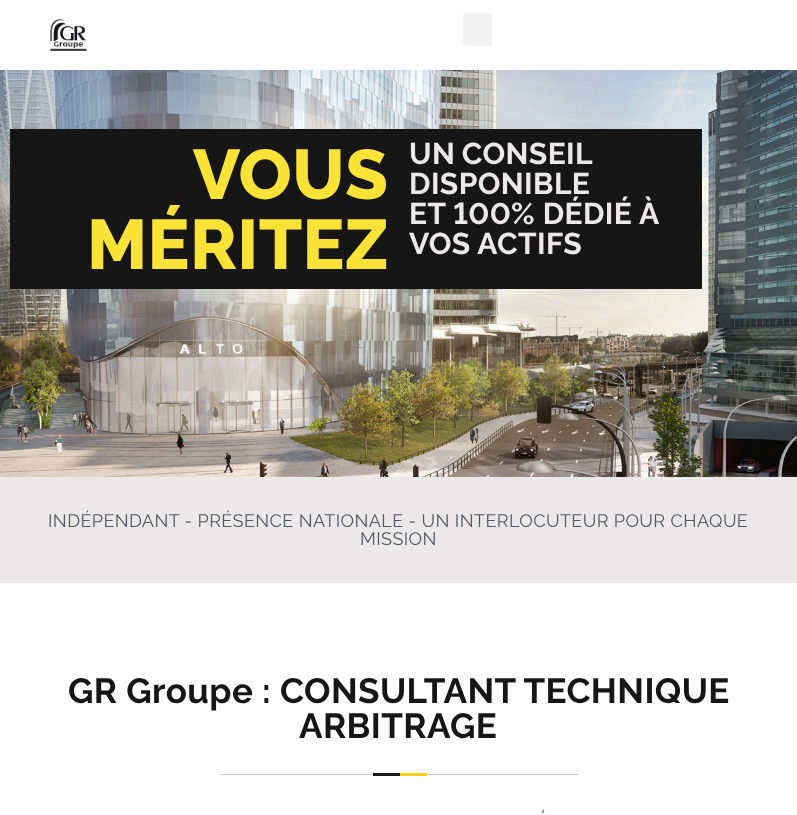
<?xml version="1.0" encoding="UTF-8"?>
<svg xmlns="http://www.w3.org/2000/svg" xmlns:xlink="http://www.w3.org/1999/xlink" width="797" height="815">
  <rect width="100%" height="100%" fill="#ffffff" />
  <image x="50" y="19" width="37" height="32" xlink:href="image1.png" />
  <rect x="463" y="13" width="29" height="33" rx="3" fill="#f2f2f2" />
  <image x="0" y="70" width="797" height="407" xlink:href="image2.png" />
  <rect x="10" y="129" width="692" height="160" fill="#161616" />
  <rect y="477" width="797" height="106" fill="#eae8e8" />
  <image x="220" y="773" width="359" height="3" xlink:href="image3.png" />
  <text x="193" y="199" style="font-family: Raleway; font-size: 70px; font-weight: 800; letter-spacing: 0.4px; fill: #fae236">VOUS</text>
  <text x="87" y="269" style="font-family: Raleway; font-size: 70px; font-weight: 800; letter-spacing: 0.4px; fill: #fae236">MÉRITEZ</text>
  <text x="409" y="164" word-spacing="-1" style="font-family: Raleway; font-size: 30px; font-weight: bold; letter-spacing: 0.4px; fill: #eae8e8">UN CONSEIL</text>
  <text x="409" y="194" style="font-family: Raleway; font-size: 30px; font-weight: bold; letter-spacing: 0.4px; fill: #eae8e8">DISPONIBLE</text>
  <text x="409" y="224" style="font-family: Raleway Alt; font-size: 30px; font-weight: bold; letter-spacing: 0.4px; fill: #eae8e8">ET 100% DÉDIÉ À</text>
  <text x="409" y="254" style="font-family: Raleway; font-size: 30px; font-weight: bold; letter-spacing: 0.4px; fill: #eae8e8">VOS ACTIFS</text>
  <text x="48" y="527" style="font-family: Raleway; font-size: 18px; letter-spacing: 0.4px; fill: #54595f">INDÉPENDANT - PRÉSENCE NATIONALE - UN INTERLOCUTEUR POUR CHAQUE</text>
  <text x="360" y="545" style="font-family: Raleway; font-size: 18px; letter-spacing: 0.4px; fill: #54595f">MISSION</text>
  <text x="68" y="703" style="font-family: Raleway; font-size: 35px; font-weight: bold; letter-spacing: 0.4px; fill: #161616">GR Groupe : CONSULTANT TECHNIQUE</text>
  <text x="299" y="738" style="font-family: Raleway; font-size: 35px; font-weight: bold; letter-spacing: 0.4px; fill: #161616">ARBITRAGE</text>
  <text x="542" y="820" style="font-family: Open Sans; font-size: 14px; letter-spacing: 1px; fill: #54595f">’</text>
</svg>
